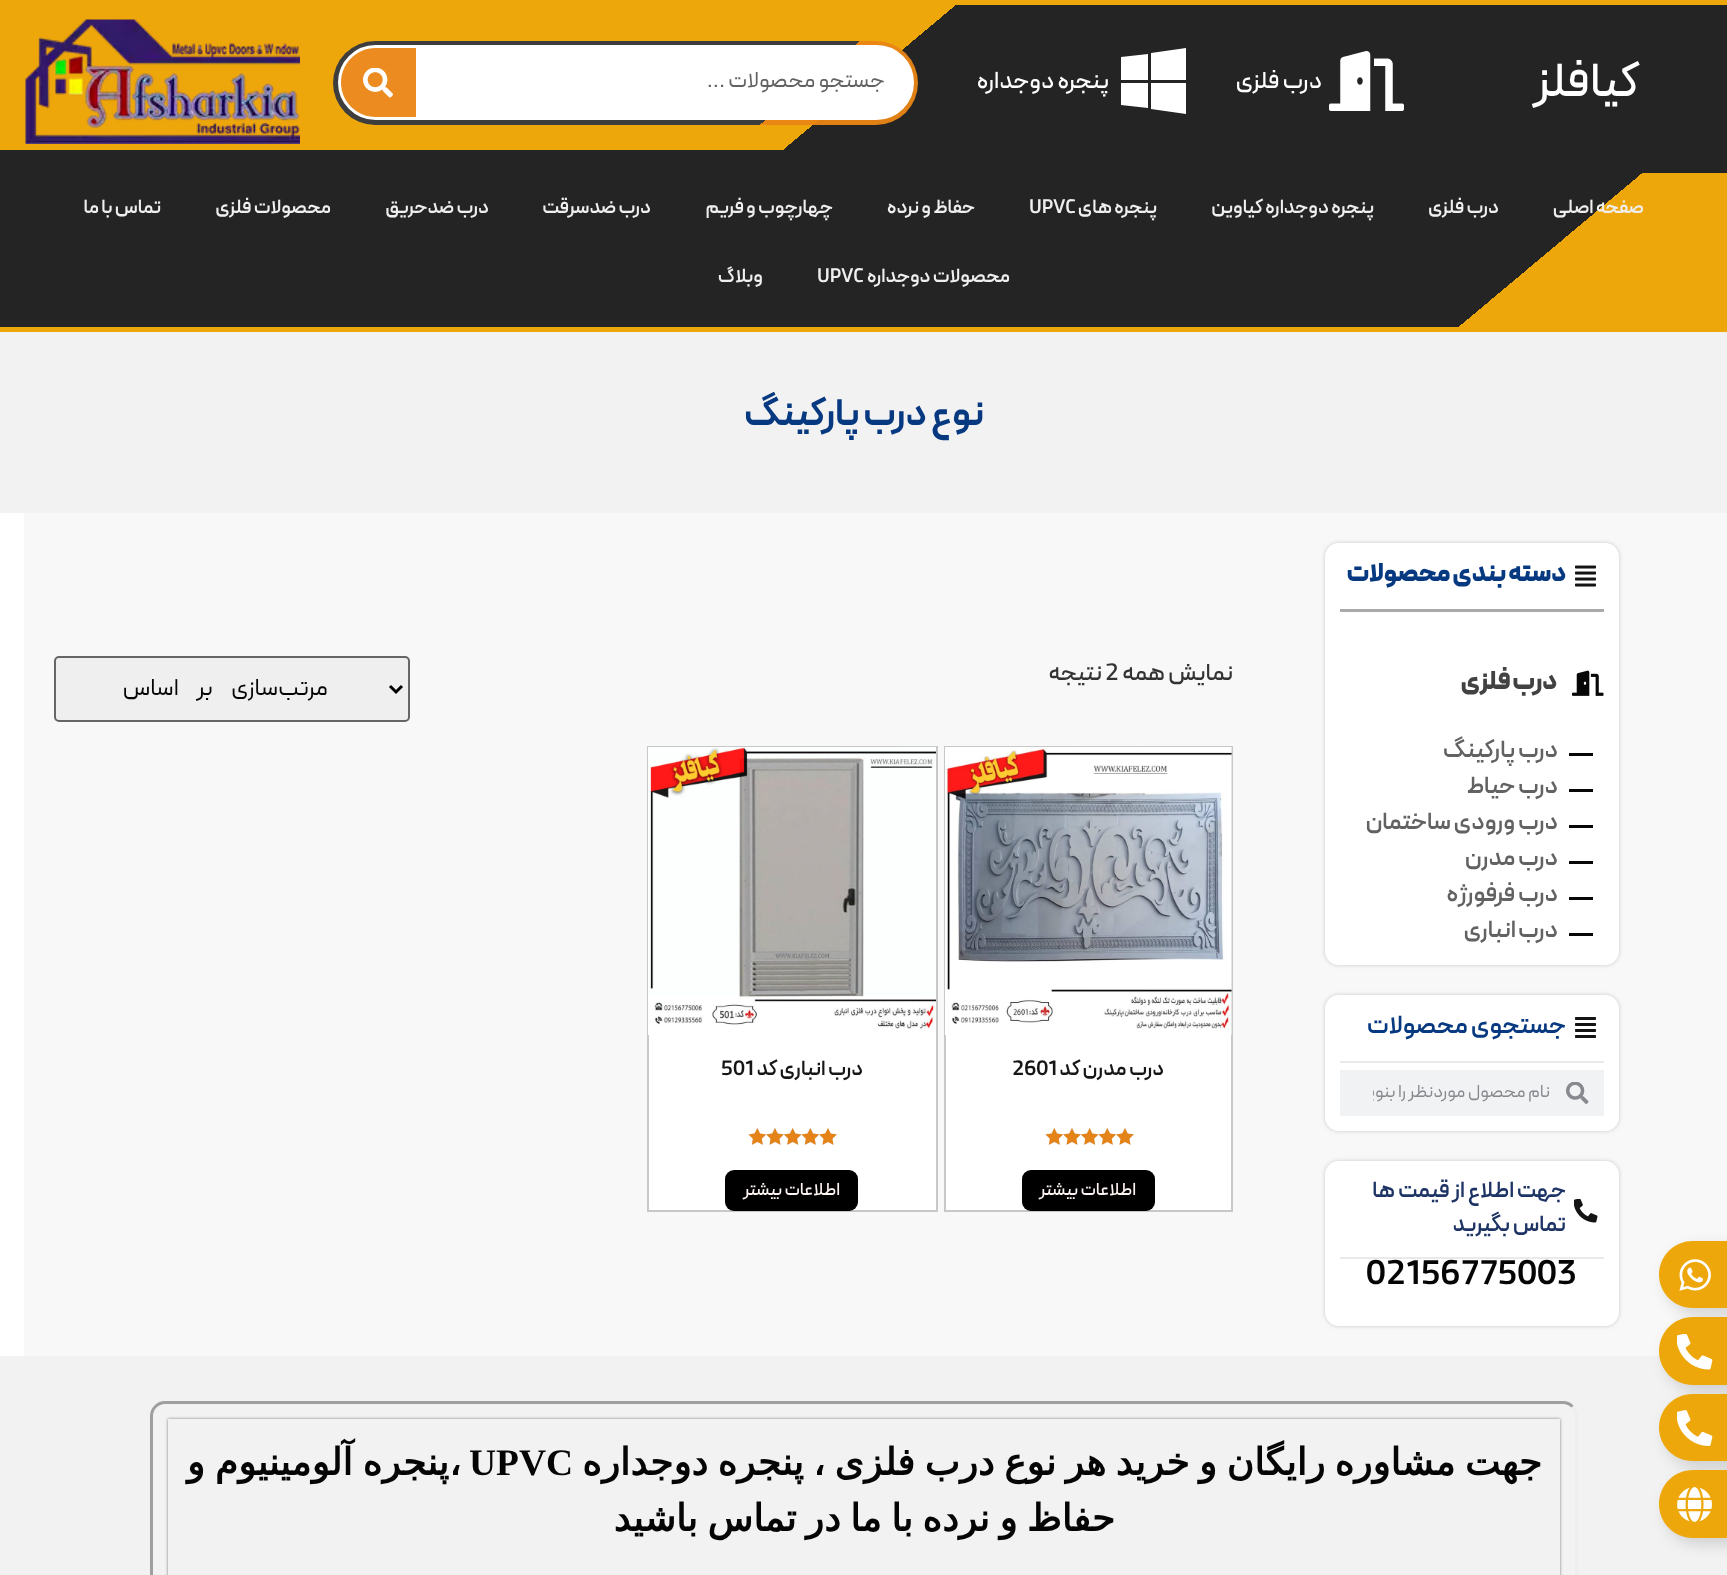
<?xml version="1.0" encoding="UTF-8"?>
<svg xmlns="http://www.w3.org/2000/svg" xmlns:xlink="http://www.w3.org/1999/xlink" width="1727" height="1575">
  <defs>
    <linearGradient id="g1" gradientUnits="userSpaceOnUse" x1="1259" y1="553" x2="469" y2="-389"><stop offset="0.5" stop-color="#242424" /><stop offset="0.5" stop-color="#eea70b" /></linearGradient>
    <linearGradient id="g2" gradientUnits="userSpaceOnUse" x1="767" y1="251" x2="484" y2="-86"><stop offset="0.23" stop-color="#ea8514" stop-opacity="0.95" /><stop offset="0.23" stop-color="#3d3d3d" /></linearGradient>
    <linearGradient id="g3" gradientUnits="userSpaceOnUse" x1="1262" y1="718" x2="466" y2="-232"><stop offset="0.14" stop-color="#eea70b" /><stop offset="0.14" stop-color="#242424" /></linearGradient>
    <clipPath id="clip1"><path d="M 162 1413 h 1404 v 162 h -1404 z m 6 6 h 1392 v 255 h -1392 z" clip-rule="evenodd" /></clipPath>
    <clipPath id="clip2"><rect x="1373" y="1080" width="177" height="27" /></clipPath>
  </defs>
  <rect width="100%" height="100%" fill="#ffffff" />
  <rect y="5" width="1727" height="145" fill="url(#g1)" />
  <rect width="1727" height="5" fill="#eea70b" />
  <image x="1329" y="51" width="75" height="60" xlink:href="image1.png" />
  <path d="M 1121 57 l 27 -3 v 26 h -27 z m 0 48 l 27 3 v -25 h -27 z m 30 4 l 35 5 v -31 h -35 z m 0 -56 v 27 h 35 v -32 z" fill="#ffffff" />
  <rect x="333" y="41" width="585" height="84" rx="42" fill="url(#g2)" />
  <rect x="339.5" y="46.5" width="573" height="72" rx="36" fill="#ffffff" stroke="#ffffff" stroke-width="3" />
  <path d="M 375.5 48 h 40.5 v 69 h -40.5 c -19 0 -34.5 -15.5 -34.5 -34.5 c 0 -19 15.5 -34.5 34.5 -34.5 z" fill="#eb8b20" />
  <image x="363" y="68" width="30" height="30" xlink:href="image2.png" />
  <image x="25" y="19" width="275" height="125" xlink:href="image3.png" />
  <rect y="150" width="1727" height="23" fill="#242424" />
  <rect y="173" width="1727" height="154" fill="url(#g3)" />
  <rect y="327" width="1727" height="5" fill="#eea70b" />
  <rect y="332" width="1727" height="181" fill="#f2f2f2" />
  <rect x="24" y="513" width="1703" height="843" fill="#f8f8f8" />
  <rect x="1325" y="543" width="294" height="422" rx="14" fill="#9c9c9c" fill-opacity="0.5" filter="blur(2px)" />
  <rect x="1325" y="543" width="294" height="422" rx="14" fill="#ffffff" />
  <image x="1575" y="565" width="21" height="22" xlink:href="image4.png" />
  <rect x="1340" y="609" width="264" height="3" fill="#aba9a9" />
  <image x="1572" y="670" width="32" height="26" xlink:href="image5.png" />
  <rect x="1569" y="753" width="24" height="3" fill="#070707" />
  <rect x="1569" y="789" width="24" height="3" fill="#070707" />
  <rect x="1569" y="825" width="24" height="3" fill="#070707" />
  <rect x="1569" y="861" width="24" height="3" fill="#070707" />
  <rect x="1569" y="897" width="24" height="3" fill="#070707" />
  <rect x="1569" y="933" width="24" height="3" fill="#070707" />
  <rect x="1325" y="995" width="294" height="136" rx="14" fill="#9c9c9c" fill-opacity="0.5" filter="blur(2px)" />
  <rect x="1325" y="995" width="294" height="136" rx="14" fill="#ffffff" />
  <image x="1575" y="1017" width="21" height="21" xlink:href="image6.png" />
  <rect x="1340" y="1061" width="264" height="2" fill="#eaeaea" />
  <rect x="1340" y="1070" width="264" height="46" fill="#f1f2f3" />
  <image x="1566" y="1082" width="23" height="22" xlink:href="image7.png" />
  <rect x="1325" y="1161" width="294" height="165" rx="14" fill="#9c9c9c" fill-opacity="0.5" filter="blur(2px)" />
  <rect x="1325" y="1161" width="294" height="165" rx="14" fill="#ffffff" />
  <image x="1574" y="1199" width="24" height="24" xlink:href="image8.png" />
  <rect x="1340" y="1257" width="264" height="2" fill="#eaeaea" />
  <rect x="55" y="657" width="354" height="64" rx="4" fill="#efefef" stroke="#666666" stroke-width="2" />
  <path d="M 390 686 l 6 6 l 6 -6" fill="none" stroke="#000000" stroke-width="3" />
  <rect x="946" y="1035" width="285" height="175" fill="#ffffff" />
  <rect x="945" y="747" width="287" height="464" fill="none" stroke="#c8c8c8" stroke-width="2" />
  <image x="945" y="747" width="287" height="288" xlink:href="image9.png" />
  <image x="1045" y="1128" width="89" height="17" xlink:href="image10.png" />
  <image x="1045" y="1128" width="89" height="17" xlink:href="image11.png" />
  <rect x="1022" y="1170" width="133" height="41" rx="9" fill="#000000" />
  <rect x="649" y="1035" width="287" height="175" fill="#ffffff" />
  <rect x="648" y="747" width="289" height="464" fill="none" stroke="#c8c8c8" stroke-width="2" />
  <image x="648" y="747" width="288" height="288" xlink:href="image12.png" />
  <image x="748" y="1128" width="89" height="17" xlink:href="image10.png" />
  <image x="748" y="1128" width="89" height="17" xlink:href="image11.png" />
  <rect x="725" y="1170" width="133" height="41" rx="9" fill="#000000" />
  <rect x="1665" y="1247" width="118" height="67" rx="33.5" fill="#000000" fill-opacity="0.15" filter="blur(7.5px)" />
  <path d="M 1692.5 1241 h 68.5 v 67 h -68.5 c -18.5 0 -33.5 -15 -33.5 -33.5 c 0 -18.5 15 -33.5 33.5 -33.5 z" fill="#eea70b" />
  <image x="1679" y="1259" width="32" height="32" xlink:href="image13.png" />
  <rect y="1356" width="1727" height="219" fill="#f2f2f2" />
  <rect x="1665" y="1323" width="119" height="68" rx="34" fill="#000000" fill-opacity="0.15" filter="blur(7.5px)" />
  <path d="M 1693 1317 h 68 v 68 h -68 c -19 0 -34 -15 -34 -34 c 0 -19 15 -34 34 -34 z" fill="#eea70b" />
  <image x="1677" y="1334" width="36" height="36" xlink:href="image14.png" />
  <rect x="1665" y="1400" width="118" height="67" rx="33.5" fill="#000000" fill-opacity="0.15" filter="blur(7.5px)" />
  <path d="M 1692.5 1394 h 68.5 v 67 h -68.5 c -18.5 0 -33.5 -15 -33.5 -33.5 c 0 -18.5 15 -33.5 33.5 -33.5 z" fill="#eea70b" />
  <image x="1677" y="1410" width="36" height="36" xlink:href="image15.png" />
  <rect x="1665" y="1476" width="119" height="68" rx="34" fill="#000000" fill-opacity="0.15" filter="blur(7.5px)" />
  <path d="M 1693 1470 h 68 v 68 h -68 c -19 0 -34 -15 -34 -34 c 0 -19 15 -34 34 -34 z" fill="#eea70b" />
  <image x="1677" y="1487" width="35" height="35" xlink:href="image16.png" />
  <path d="M 1572.5 1406.5 c 2.5 2.5 4 6 4 9.5 v 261 c 0 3.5 -1.5 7 -4 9.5 c -2.5 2.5 -6 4 -9.5 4 h -1398 c -3.5 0 -7 -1.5 -9.5 -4" fill="none" stroke="#eeeeee" stroke-width="3" />
  <path d="M 155.5 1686.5 c -2.5 -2.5 -4 -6 -4 -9.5 v -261 c 0 -3.5 1.5 -7 4 -9.5 c 2.5 -2.5 6 -4 9.5 -4 h 1398 c 3.5 0 7 1.5 9.5 4" fill="none" stroke="#9f9f9f" stroke-width="3" />
  <g clip-path="url(#clip1)">
    <rect x="168" y="1419" width="1392" height="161" fill="#000000" fill-opacity="0.5" filter="blur(1.5px)" />
  </g>
  <text x="1639" y="96" style="font-family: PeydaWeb; font-size: 48px; font-weight: 500; direction: rtl; fill: #ffffff">کیافلز</text>
  <text x="1322" y="88" style="font-family: PeydaWeb; font-size: 24px; font-weight: 500; direction: rtl; fill: #ffffff">درب فلزی</text>
  <text x="1109" y="88" style="font-family: PeydaWeb; font-size: 24px; font-weight: 500; direction: rtl; fill: #ffffff">پنجره دوجداره</text>
  <text x="885" y="87" style="font-family: PeydaWeb; font-size: 22.5px; direction: rtl; fill: #636262">جستجو محصولات ...</text>
  <text x="1644" y="213" style="font-family: PeydaWeb; font-size: 19.5px; font-weight: 600; direction: rtl; fill: #f0eeee">صفحه اصلی</text>
  <text x="1499" y="213" style="font-family: PeydaWeb; font-size: 19.5px; font-weight: 600; direction: rtl; fill: #f0eeee">درب فلزی</text>
  <text x="1374" y="213" style="font-family: PeydaWeb; font-size: 19.5px; font-weight: 600; direction: rtl; fill: #f0eeee">پنجره دوجداره کیاوین</text>
  <text x="1157" y="213" style="font-family: PeydaWeb; font-size: 19.5px; font-weight: 600; direction: rtl; fill: #f0eeee">پنجره های</text>
  <text x="1029" y="213" style="font-family: PeydaWeb; font-size: 19.5px; font-weight: 600; fill: #f0eeee">UPVC</text>
  <text x="975" y="213" style="font-family: PeydaWeb; font-size: 19.5px; font-weight: 600; direction: rtl; fill: #f0eeee">حفاظ و نرده</text>
  <text x="833" y="213" style="font-family: PeydaWeb; font-size: 19.5px; font-weight: 600; direction: rtl; fill: #f0eeee">چهارچوب و فریم</text>
  <text x="651" y="213" style="font-family: PeydaWeb; font-size: 19.5px; font-weight: 600; direction: rtl; fill: #f0eeee">درب ضدسرقت</text>
  <text x="489" y="213" style="font-family: PeydaWeb; font-size: 19.5px; font-weight: 600; direction: rtl; fill: #f0eeee">درب ضدحریق</text>
  <text x="331" y="213" style="font-family: PeydaWeb; font-size: 19.5px; font-weight: 600; direction: rtl; fill: #f0eeee">محصولات فلزی</text>
  <text x="161" y="213" style="font-family: PeydaWeb; font-size: 19.5px; font-weight: 600; direction: rtl; fill: #f0eeee">تماس با ما</text>
  <text x="1010" y="282" style="font-family: PeydaWeb; font-size: 19.5px; font-weight: 600; direction: rtl; fill: #f0eeee">محصولات دوجداره</text>
  <text x="817" y="282" style="font-family: PeydaWeb; font-size: 19.5px; font-weight: 600; fill: #f0eeee">UPVC</text>
  <text x="763" y="282" style="font-family: PeydaWeb; font-size: 19.5px; font-weight: 600; direction: rtl; fill: #f0eeee">وبلاگ</text>
  <text x="984" y="425" style="font-family: PeydaWeb; font-size: 37.5px; font-weight: bold; direction: rtl; fill: #073981">نوع درب پارکینگ</text>
  <text x="1566" y="581" style="font-family: PeydaWeb; font-size: 25.5px; font-weight: 900; direction: rtl; fill: #073981">دسته بندی محصولات</text>
  <text x="1557" y="689" style="font-family: PeydaWeb; font-size: 25.5px; font-weight: 900; direction: rtl; fill: #424242">درب فلزی</text>
  <text x="1558" y="757" style="font-family: PeydaWeb; font-size: 24px; font-weight: 600; direction: rtl; fill: #636262">درب پارکینگ</text>
  <text x="1558" y="793" style="font-family: PeydaWeb; font-size: 24px; font-weight: 600; direction: rtl; fill: #636262">درب حیاط</text>
  <text x="1558" y="829" style="font-family: PeydaWeb; font-size: 24px; font-weight: 600; direction: rtl; fill: #636262">درب ورودی ساختمان</text>
  <text x="1558" y="865" style="font-family: PeydaWeb; font-size: 24px; font-weight: 600; direction: rtl; fill: #636262">درب مدرن</text>
  <text x="1558" y="901" style="font-family: PeydaWeb; font-size: 24px; font-weight: 600; direction: rtl; fill: #636262">درب فرفورژه</text>
  <text x="1558" y="937" style="font-family: PeydaWeb; font-size: 24px; font-weight: 600; direction: rtl; fill: #636262">درب</text>
  <text x="1516" y="937" style="font-family: PeydaWeb; font-size: 24px; font-weight: 600; direction: rtl; fill: #636262">انباری</text>
  <text x="1566" y="1033" style="font-family: PeydaWeb; font-size: 25.5px; font-weight: 600; direction: rtl; fill: #073981">جستجوی محصولات</text>
  <g clip-path="url(#clip2)">
    <text x="1550" y="1097" style="font-family: PeydaWeb; font-size: 18px; direction: rtl; fill: #868a8e">نام محصول موردنظر را بنویسید</text>
  </g>
  <text x="1566" y="1197" style="font-family: PeydaWeb; font-size: 22.5px; font-weight: 600; direction: rtl; fill: #1e3465">جهت اطلاع از قیمت</text>
  <text x="1395" y="1197" style="font-family: PeydaWeb; font-size: 22.5px; font-weight: 600; direction: rtl; fill: #1e3465">ها</text>
  <text x="1566" y="1231" style="font-family: PeydaWeb; font-size: 22.5px; font-weight: 600; direction: rtl; fill: #1e3465">تماس بگیرید</text>
  <text x="1366" y="1284" style="font-family: PeydaWeb; font-size: 34.5px; font-weight: 600; fill: #050505">02156775003</text>
  <text x="1233" y="680" style="font-family: PeydaWeb; font-size: 24px; font-weight: 500; direction: rtl; fill: #333333">نمایش همه</text>
  <text x="1105" y="680" style="font-family: PeydaWeb; font-size: 24px; font-weight: 500; fill: #333333">2</text>
  <text x="1102" y="680" style="font-family: PeydaWeb; font-size: 24px; font-weight: 500; direction: rtl; fill: #333333">نتیجه</text>
  <text x="328" y="695" word-spacing="15" style="font-family: PeydaWeb; font-size: 24px; direction: rtl; fill: #050505">مرتب‌سازی بر اساس</text>
  <text x="1164" y="1075" style="font-family: PeydaWeb; font-size: 21px; font-weight: 600; direction: rtl; fill: #161616">درب مدرن کد</text>
  <text x="1012" y="1075" style="font-family: PeydaWeb; font-size: 21px; font-weight: 600; fill: #161616">2601</text>
  <text x="1136" y="1195" style="font-family: PeydaWeb; font-size: 18px; font-weight: 500; direction: rtl; fill: #fff4f4">اطلاعات بیشتر</text>
  <text x="863" y="1075" style="font-family: PeydaWeb; font-size: 21px; font-weight: 600; direction: rtl; fill: #161616">درب انباری کد</text>
  <text x="721" y="1075" style="font-family: PeydaWeb; font-size: 21px; font-weight: 600; fill: #161616">501</text>
  <text x="840" y="1195" style="font-family: PeydaWeb; font-size: 18px; font-weight: 500; direction: rtl; fill: #fff4f4">اطلاعات بیشتر</text>
  <text x="1542" y="1475" word-spacing="-2.5" style="font-family: DejaVu Sans; font-size: 37.5px; font-weight: bold; direction: rtl; fill: #050505">جهت مشاوره رایگان و خرید هر نوع درب فلزی ، پنجره دوجداره</text>
  <text x="469" y="1475" style="font-family: Liberation Serif; font-size: 37.5px; font-weight: bold; fill: #050505">UPVC</text>
  <text x="461" y="1475" word-spacing="-2" style="font-family: DejaVu Sans; font-size: 37.5px; font-weight: bold; direction: rtl; fill: #050505">،پنجره آلومینیوم و</text>
  <text x="1115" y="1531" word-spacing="-2.5" style="font-family: DejaVu Sans; font-size: 37.5px; font-weight: bold; direction: rtl; fill: #050505">حفاظ و نرده با ما در تماس باشید</text>
</svg>
